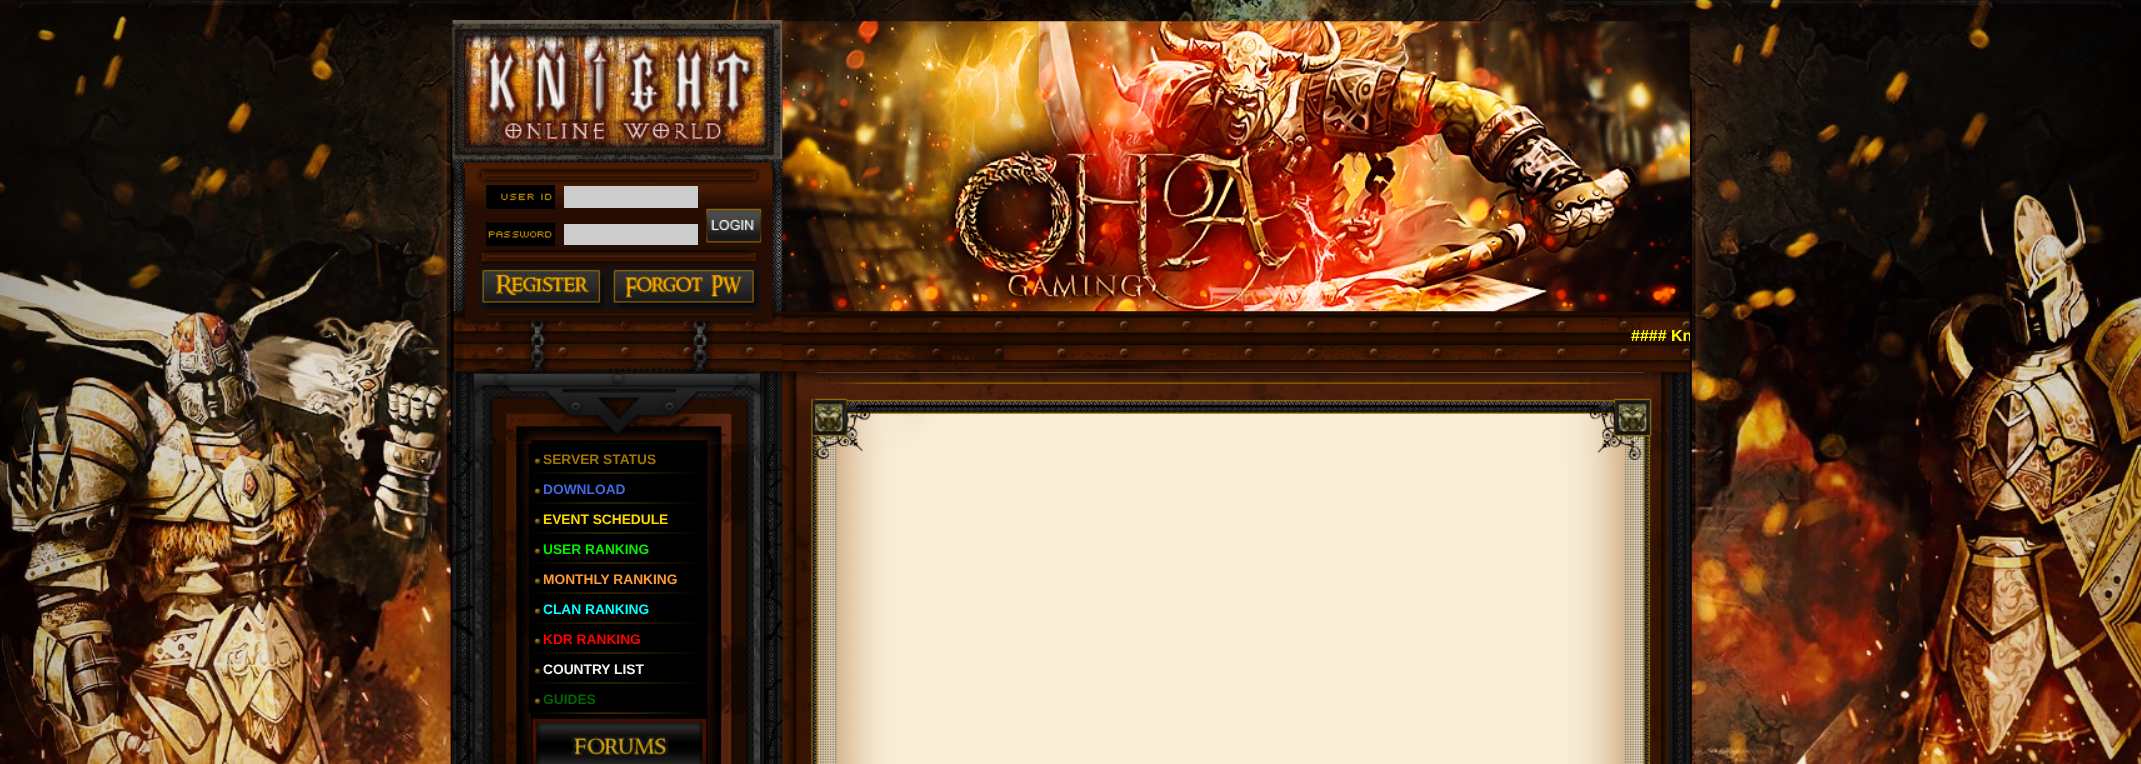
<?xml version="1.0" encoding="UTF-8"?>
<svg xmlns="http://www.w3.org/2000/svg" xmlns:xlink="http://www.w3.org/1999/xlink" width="2141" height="764">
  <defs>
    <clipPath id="clip1"><rect x="783" y="311" width="907" height="50" /></clipPath>
  </defs>
  <rect width="100%" height="100%" fill="#ffffff" />
  <image x="0" y="0" width="2141" height="764" xlink:href="image1.png" />
  <image x="452" y="20" width="331" height="353" xlink:href="image2.png" />
  <image x="452" y="20" width="331" height="139" xlink:href="image3.png" />
  <image x="486" y="185" width="69" height="24" xlink:href="image4.png" />
  <rect x="564" y="186" width="134" height="22" fill="#cccccc" />
  <image x="486" y="222" width="69" height="25" xlink:href="image5.png" />
  <rect x="564" y="224" width="134" height="21" fill="#cccccc" />
  <image x="706" y="208" width="56" height="35" xlink:href="image6.png" />
  <image x="478" y="266" width="129" height="43" xlink:href="image7.png" />
  <image x="607" y="266" width="153" height="43" xlink:href="image8.png" />
  <image x="782" y="311" width="908" height="62" xlink:href="image10.png" />
  <image x="782" y="21" width="908" height="291" xlink:href="image9.png" />
  <image x="452" y="372" width="331" height="392" xlink:href="image11.png" />
  <image x="452" y="372" width="331" height="72" xlink:href="image12.png" />
  <image x="452" y="443" width="331" height="321" xlink:href="image13.png" />
  <image x="528" y="443" width="171" height="31" xlink:href="image14.png" />
  <image x="528" y="473" width="171" height="31" xlink:href="image15.png" />
  <image x="528" y="503" width="171" height="31" xlink:href="image16.png" />
  <image x="528" y="533" width="171" height="31" xlink:href="image17.png" />
  <image x="528" y="563" width="171" height="31" xlink:href="image18.png" />
  <image x="528" y="593" width="171" height="31" xlink:href="image19.png" />
  <image x="528" y="623" width="171" height="31" xlink:href="image20.png" />
  <image x="528" y="653" width="171" height="31" xlink:href="image21.png" />
  <image x="528" y="683" width="171" height="31" xlink:href="image22.png" />
  <image x="531" y="715" width="177" height="49" xlink:href="image23.png" />
  <image x="782" y="372" width="908" height="392" xlink:href="image24.png" />
  <image x="782" y="372" width="908" height="90" xlink:href="image25.png" />
  <g clip-path="url(#clip1)">
    <text x="1631" y="341" style="font-family: Liberation Sans; font-size: 16px; font-weight: bold; fill: #ffff00">#### Kn</text>
  </g>
  <text x="543" y="464" style="font-family: Liberation Sans; font-size: 13.75px; font-weight: bold; fill: #9f7401">SERVER STATUS</text>
  <text x="543" y="494" style="font-family: Liberation Sans; font-size: 13.75px; font-weight: bold; fill: #4169e1">DOWNLOAD</text>
  <text x="543" y="524" style="font-family: Liberation Sans; font-size: 13.75px; font-weight: bold; fill: #ffd700">EVENT SCHEDULE</text>
  <text x="543" y="554" style="font-family: Liberation Sans; font-size: 13.75px; font-weight: bold; fill: #00f000">USER RANKING</text>
  <text x="543" y="584" style="font-family: Liberation Sans; font-size: 13.75px; font-weight: bold; fill: #ff9933">MONTHLY RANKING</text>
  <text x="543" y="614" style="font-family: Liberation Sans; font-size: 13.75px; font-weight: bold; fill: #00ffff">CLAN RANKING</text>
  <text x="543" y="644" style="font-family: Liberation Sans; font-size: 13.75px; font-weight: bold; fill: #ff0000">KDR RANKING</text>
  <text x="543" y="674" style="font-family: Liberation Sans; font-size: 13.75px; font-weight: bold; fill: #f2f2f2">COUNTRY LIST</text>
  <text x="543" y="704" style="font-family: Liberation Sans; font-size: 13.75px; font-weight: bold; fill: #006400">GUIDES</text>
</svg>
